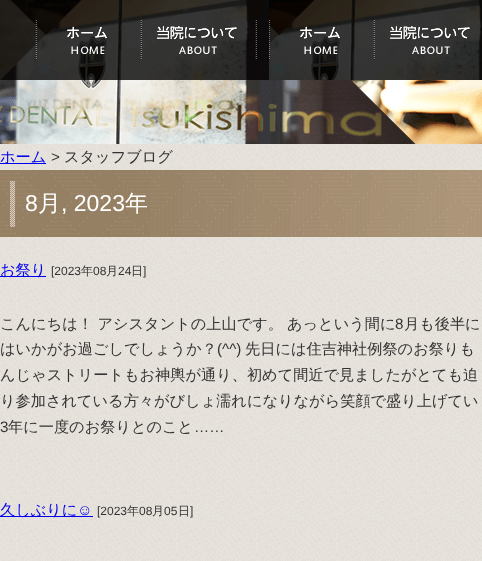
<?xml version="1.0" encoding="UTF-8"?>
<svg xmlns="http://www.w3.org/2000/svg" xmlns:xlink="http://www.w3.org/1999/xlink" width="482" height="561">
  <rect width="100%" height="100%" fill="#ffffff" />
  <image x="0" y="144" width="482" height="417" xlink:href="image1.png" />
  <image x="0" y="0" width="482" height="144" xlink:href="image2.png" />
  <image x="269" y="0" width="105" height="80" xlink:href="image3.png" />
  <image x="374" y="0" width="108" height="80" xlink:href="image4.png" />
  <rect y="163" width="46" height="1" fill="#0000ee" />
  <image x="0" y="170" width="482" height="67" xlink:href="image5.png" />
  <rect y="276" width="46" height="1" fill="#0000ee" />
  <rect y="516" width="93" height="1" fill="#0000ee" />
  <text x="0" y="162" style="font-family: WenQuanYi Zen Hei; font-size: 15.2px; font-weight: 500; fill: #0000ee">ホーム</text>
  <text x="51" y="162" style="font-family: Liberation Sans; font-size: 15.2px; fill: #333333">&gt;</text>
  <text x="64" y="162" style="font-family: WenQuanYi Zen Hei; font-size: 15.2px; font-weight: 500; fill: #333333">スタッフブログ</text>
  <text x="25" y="211" style="font-family: Liberation Sans; font-size: 23px; fill: #ffffff">8</text>
  <text x="38" y="211" style="font-family: WenQuanYi Zen Hei; font-size: 23px; font-weight: 500; fill: #ffffff">月</text>
  <text x="61" y="211" style="font-family: Liberation Sans; font-size: 23px; fill: #ffffff">, 2023</text>
  <text x="125" y="211" style="font-family: WenQuanYi Zen Hei; font-size: 23px; font-weight: 500; fill: #ffffff">年</text>
  <text x="0" y="275" style="font-family: WenQuanYi Zen Hei; font-size: 15.2px; font-weight: 500; fill: #0000ee">お祭り</text>
  <text x="51" y="275" style="font-family: Liberation Sans; font-size: 12px; fill: #333333">[2023</text>
  <text x="81" y="275" style="font-family: WenQuanYi Zen Hei; font-size: 12px; font-weight: 500; fill: #333333">年</text>
  <text x="93" y="275" style="font-family: Liberation Sans; font-size: 12px; fill: #333333">08</text>
  <text x="106" y="275" style="font-family: WenQuanYi Zen Hei; font-size: 12px; font-weight: 500; fill: #333333">月</text>
  <text x="118" y="275" style="font-family: Liberation Sans; font-size: 12px; fill: #333333">24</text>
  <text x="131" y="275" style="font-family: WenQuanYi Zen Hei; font-size: 12px; font-weight: 500; fill: #333333">日</text>
  <text x="143" y="275" style="font-family: Liberation Sans; font-size: 12px; fill: #333333">]</text>
  <text x="0" y="329" style="font-family: WenQuanYi Zen Hei; font-size: 15.2px; font-weight: 500; fill: #333333">こんにちは！ アシスタントの上山です。</text>
  <text x="287" y="329" style="font-family: WenQuanYi Zen Hei; font-size: 15.2px; font-weight: 500; fill: #333333">あっという間に</text>
  <text x="395" y="329" style="font-family: Liberation Sans; font-size: 15.2px; fill: #333333">8</text>
  <text x="404" y="329" style="font-family: WenQuanYi Zen Hei; font-size: 15.2px; font-weight: 500; fill: #333333">月も後半に</text>
  <text x="0" y="354" style="font-family: WenQuanYi Zen Hei; font-size: 15.2px; font-weight: 500; fill: #333333">はいかがお過ごしでしょうか？</text>
  <text x="217" y="354" style="font-family: Liberation Sans; font-size: 15.2px; fill: #333333">(^^)</text>
  <text x="245" y="354" style="font-family: WenQuanYi Zen Hei; font-size: 15.2px; font-weight: 500; fill: #333333">先日には住吉神社例祭のお祭りも</text>
  <text x="0" y="380" style="font-family: WenQuanYi Zen Hei; font-size: 15.2px; font-weight: 500; fill: #333333">んじゃストリートもお神輿が通り、初めて間近で見ましたがとても迫</text>
  <text x="0" y="406" style="font-family: WenQuanYi Zen Hei; font-size: 15.2px; font-weight: 500; fill: #333333">り参加されている方々がびしょ濡れになりながら笑顔で盛り上げてい</text>
  <text x="0" y="432" style="font-family: Liberation Sans; font-size: 15.2px; fill: #333333">3</text>
  <text x="8" y="432" style="font-family: WenQuanYi Zen Hei; font-size: 15.2px; font-weight: 500; fill: #333333">年に一度のお祭りとのこと</text>
  <text x="194" y="432" style="font-family: Liberation Sans; font-size: 15.2px; fill: #333333">……</text>
  <text x="0" y="515" style="font-family: WenQuanYi Zen Hei; font-size: 15.2px; font-weight: 500; fill: #0000ee">久しぶりに</text>
  <text x="77" y="515" style="font-family: Liberation Sans; font-size: 15.2px; fill: #0000ee">☺︎</text>
  <text x="97" y="515" style="font-family: Liberation Sans; font-size: 12px; fill: #333333">[2023</text>
  <text x="127" y="515" style="font-family: WenQuanYi Zen Hei; font-size: 12px; font-weight: 500; fill: #333333">年</text>
  <text x="139" y="515" style="font-family: Liberation Sans; font-size: 12px; fill: #333333">08</text>
  <text x="152" y="515" style="font-family: WenQuanYi Zen Hei; font-size: 12px; font-weight: 500; fill: #333333">月</text>
  <text x="164" y="515" style="font-family: Liberation Sans; font-size: 12px; fill: #333333">05</text>
  <text x="178" y="515" style="font-family: WenQuanYi Zen Hei; font-size: 12px; font-weight: 500; fill: #333333">日</text>
  <text x="190" y="515" style="font-family: Liberation Sans; font-size: 12px; fill: #333333">]</text>
</svg>
